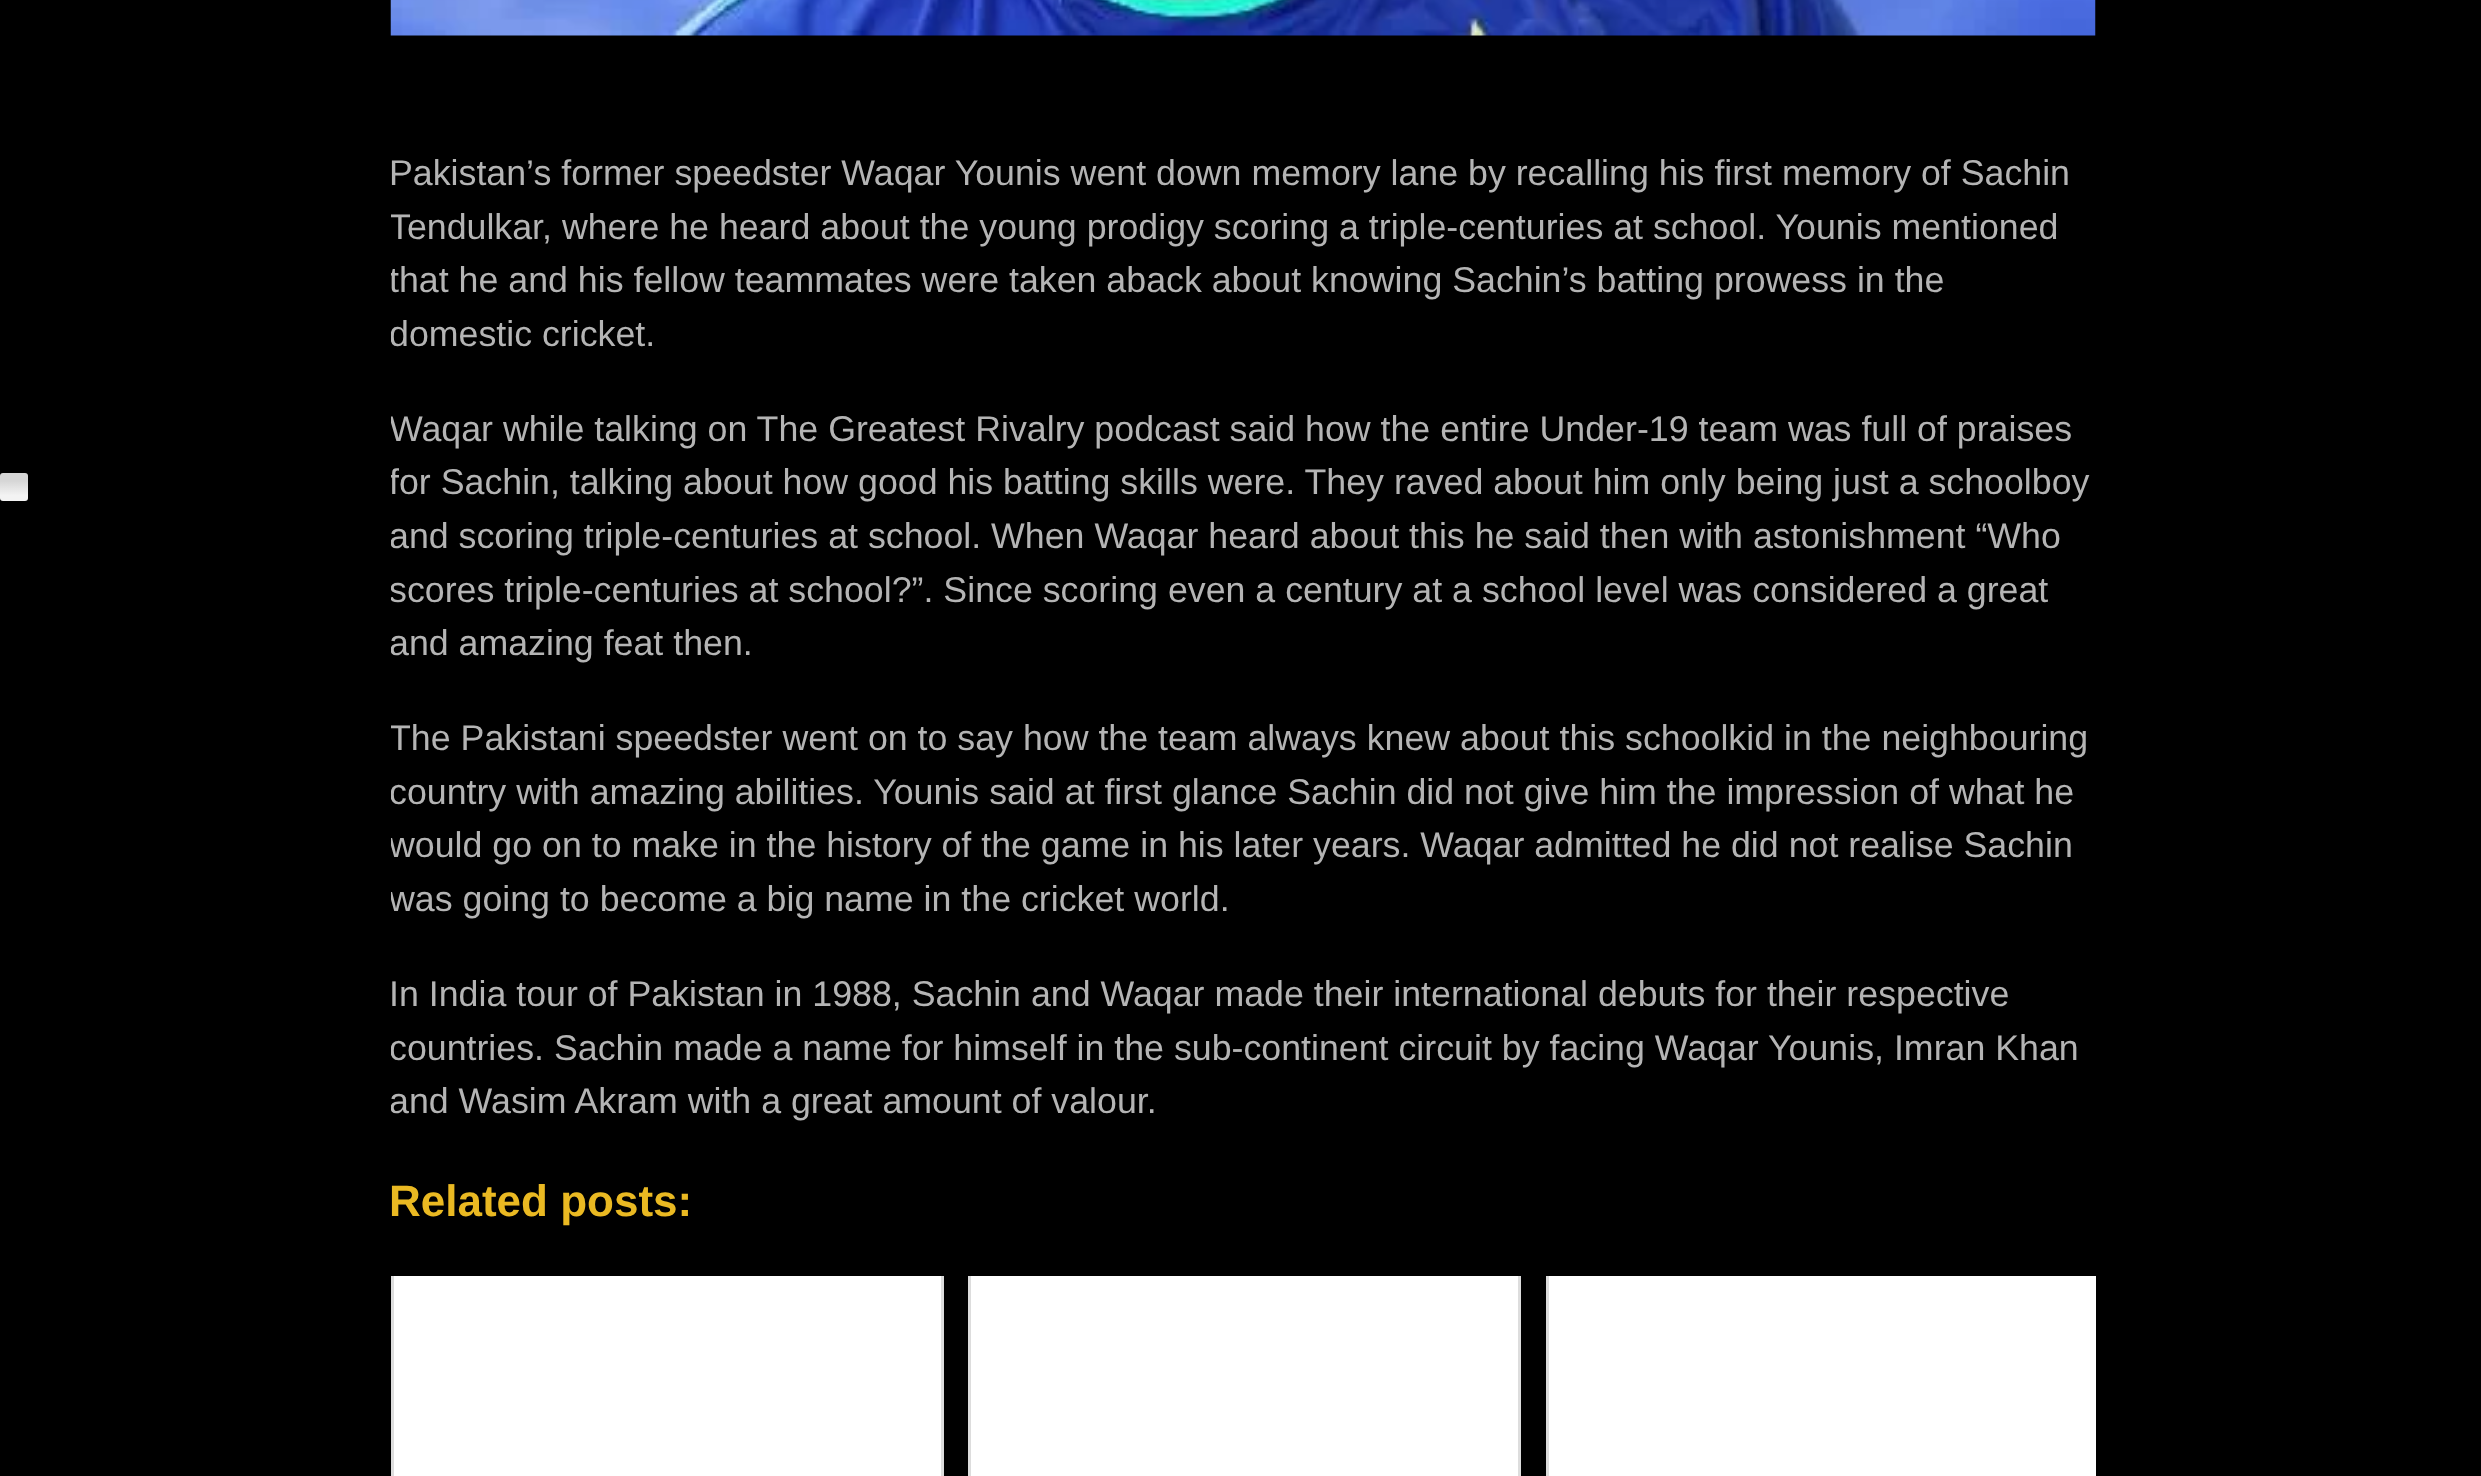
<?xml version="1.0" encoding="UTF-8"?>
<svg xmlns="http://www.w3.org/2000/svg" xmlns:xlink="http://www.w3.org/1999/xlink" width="2481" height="1476">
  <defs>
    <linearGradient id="g1" gradientUnits="userSpaceOnUse" x1="0" y1="501" x2="0" y2="473"><stop offset="0.2" stop-color="#f3f3f3" /><stop offset="0.72" stop-color="#d6d6d6" /></linearGradient>
    <clipPath id="clip1"><rect x="391" width="1705" height="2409" /></clipPath>
  </defs>
  <rect width="100%" height="100%" fill="#000000" />
  <rect y="473" width="28" height="28" rx="3" fill="url(#g1)" />
  <image x="390" y="0" width="1706" height="36" xlink:href="image1.png" />
  <rect x="394" y="1276" width="547" height="200" fill="#ffffff" />
  <rect x="941" y="1276" width="3" height="200" fill="#dddddd" />
  <rect x="391" y="1276" width="3" height="200" fill="#dddddd" />
  <rect x="971" y="1276" width="547" height="200" fill="#ffffff" />
  <rect x="1518" y="1276" width="3" height="200" fill="#dddddd" />
  <rect x="968" y="1276" width="3" height="200" fill="#dddddd" />
  <rect x="1549" y="1276" width="547" height="200" fill="#ffffff" />
  <rect x="1546" y="1276" width="3" height="200" fill="#dddddd" />
  <text x="389" y="185" style="font-family: Liberation Sans; font-size: 35.75px; fill: #b4b4b4">Pakistan’s former speedster Waqar Younis went down memory lane by recalling his first memory of Sachin</text>
  <g clip-path="url(#clip1)">
    <text x="389" y="239" style="font-family: Liberation Sans; font-size: 35.75px; fill: #b4b4b4">Tendulkar, where he heard about the young prodigy scoring a triple-centuries at school. Younis mentioned</text>
    <text x="389" y="292" style="font-family: Liberation Sans; font-size: 35.75px; fill: #b4b4b4">that he and his fellow teammates were taken aback about knowing Sachin’s batting prowess in the</text>
    <text x="389" y="346" style="font-family: Liberation Sans; font-size: 35.75px; fill: #b4b4b4">domestic cricket.</text>
    <text x="389" y="441" style="font-family: Liberation Sans; font-size: 35.75px; fill: #b4b4b4">Waqar while talking on The Greatest Rivalry podcast said how the entire Under-19 team was full of praises</text>
    <text x="389" y="494" style="font-family: Liberation Sans; font-size: 35.75px; fill: #b4b4b4">for Sachin, talking about how good his batting skills were. They raved about him only being just a schoolboy</text>
    <text x="389" y="548" style="font-family: Liberation Sans; font-size: 35.75px; fill: #b4b4b4">and scoring triple-centuries at school. When Waqar heard about this he said then with astonishment “Who</text>
    <text x="389" y="602" style="font-family: Liberation Sans; font-size: 35.75px; fill: #b4b4b4">scores triple-centuries at school?”. Since scoring even a century at a school level was considered a great</text>
    <text x="389" y="655" style="font-family: Liberation Sans; font-size: 35.75px; fill: #b4b4b4">and amazing feat then.</text>
    <text x="389" y="750" style="font-family: Liberation Sans; font-size: 35.75px; fill: #b4b4b4">The Pakistani speedster went on to say how the team always knew about this schoolkid in the neighbouring</text>
    <text x="389" y="804" style="font-family: Liberation Sans; font-size: 35.75px; fill: #b4b4b4">country with amazing abilities. Younis said at first glance Sachin did not give him the impression of what he</text>
    <text x="389" y="857" style="font-family: Liberation Sans; font-size: 35.75px; fill: #b4b4b4">would go on to make in the history of the game in his later years. Waqar admitted he did not realise Sachin</text>
    <text x="389" y="911" style="font-family: Liberation Sans; font-size: 35.75px; fill: #b4b4b4">was going to become a big name in the cricket world.</text>
  </g>
  <text x="389" y="1006" style="font-family: Liberation Sans; font-size: 35.75px; fill: #b4b4b4">In India tour of Pakistan in 1988, Sachin and Waqar made their international debuts for their respective</text>
  <g clip-path="url(#clip1)">
    <text x="389" y="1060" style="font-family: Liberation Sans; font-size: 35.75px; fill: #b4b4b4">countries. Sachin made a name for himself in the sub-continent circuit by facing Waqar Younis, Imran Khan</text>
    <text x="389" y="1113" style="font-family: Liberation Sans; font-size: 35.75px; fill: #b4b4b4">and Wasim Akram with a great amount of valour.</text>
  </g>
  <text x="389" y="1216" style="font-family: Liberation Sans; font-size: 44px; font-weight: bold; fill: #eab922">Related posts:</text>
</svg>
